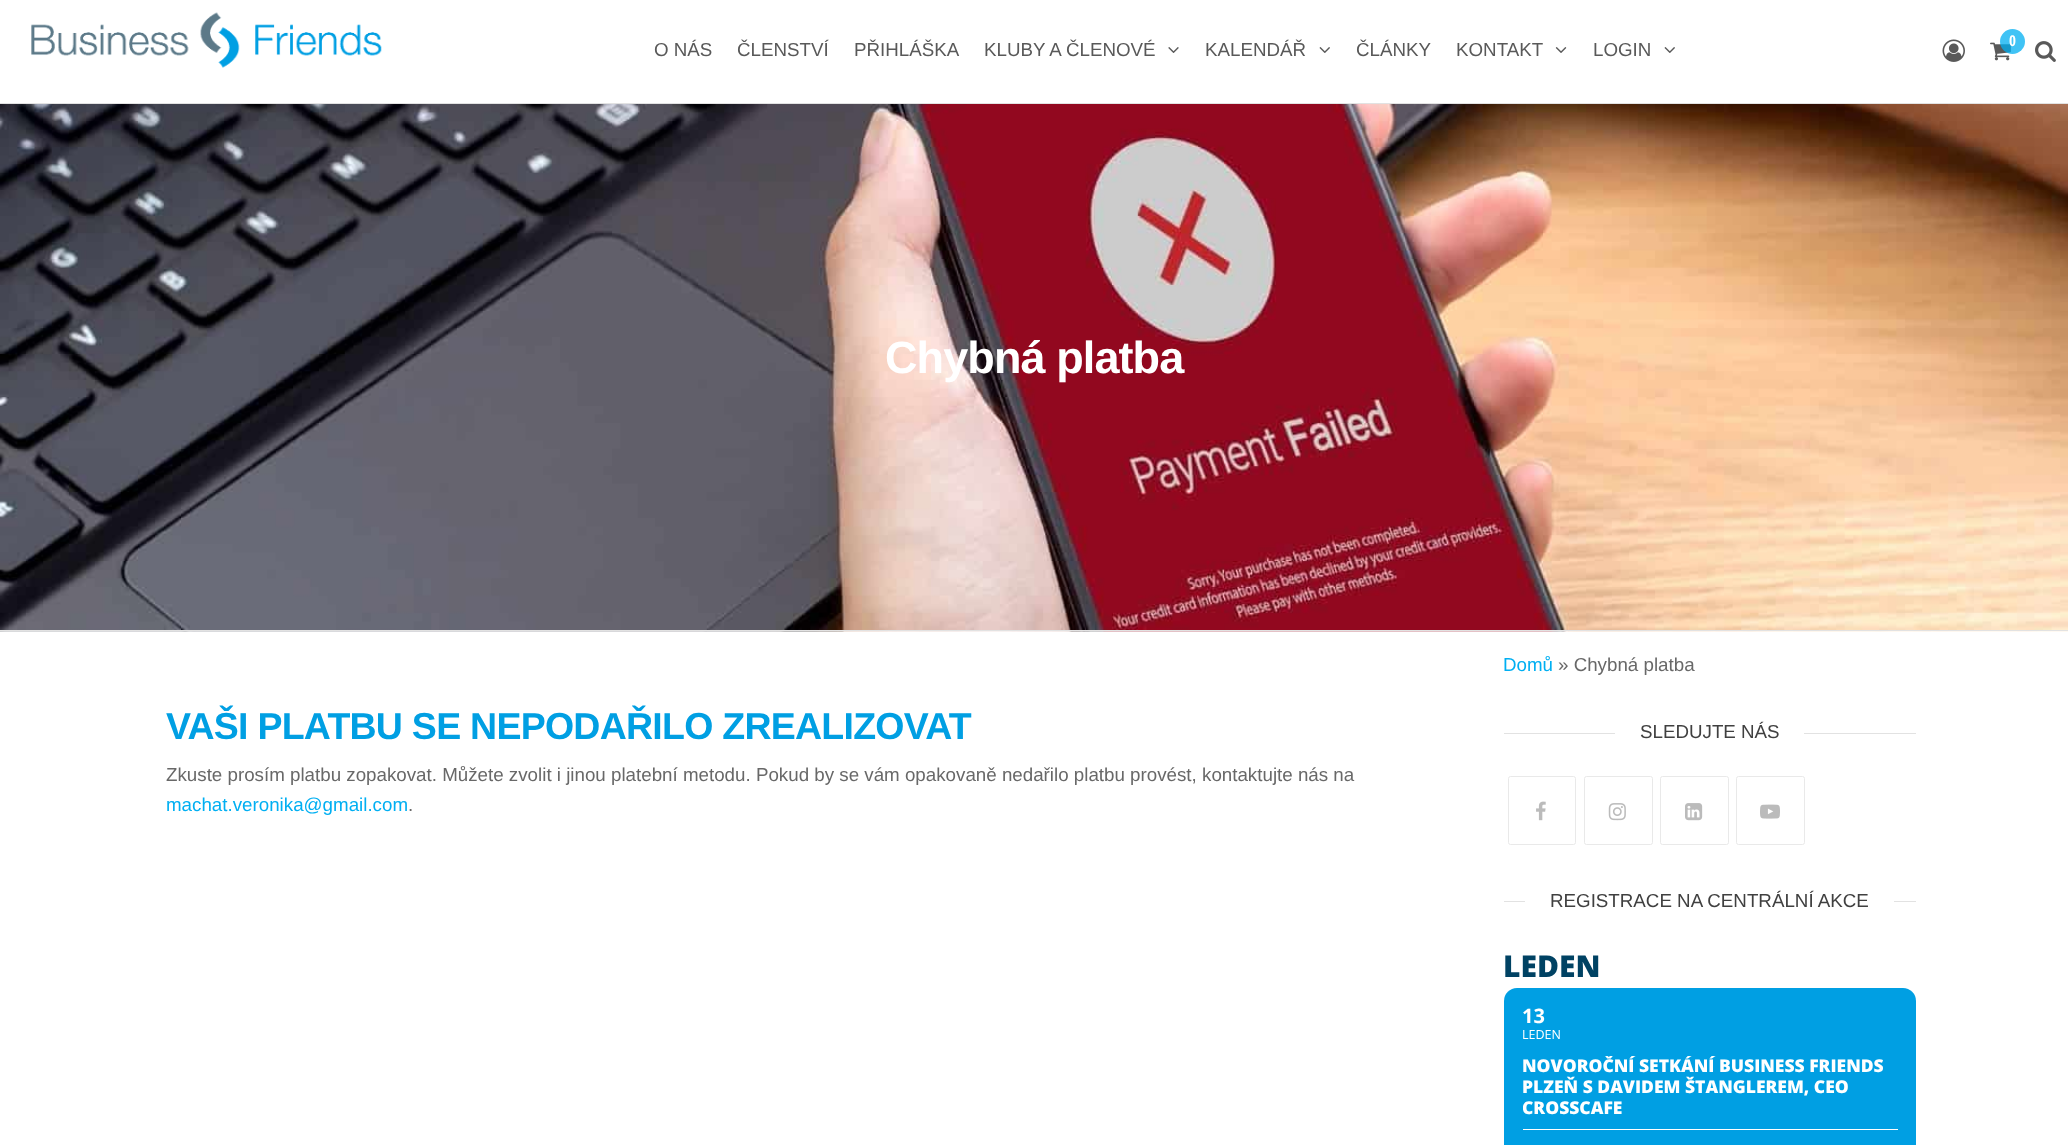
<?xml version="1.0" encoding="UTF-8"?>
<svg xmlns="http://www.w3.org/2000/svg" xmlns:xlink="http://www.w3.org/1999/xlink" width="2068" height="1145">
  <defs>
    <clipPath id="clip1"><rect x="1523" y="1056" width="375" height="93" /></clipPath>
  </defs>
  <rect width="100%" height="100%" fill="#ffffff" />
  <rect y="103" width="2068" height="1" fill="#e2e2e2" />
  <image x="31" y="12" width="351" height="56" xlink:href="image1.png" />
  <image x="1168" y="47" width="11" height="6" xlink:href="image2.png" />
  <image x="1319" y="47" width="11" height="6" xlink:href="image3.png" />
  <image x="1555" y="47" width="12" height="6" xlink:href="image4.png" />
  <image x="1664" y="47" width="11" height="6" xlink:href="image3.png" />
  <image x="1942" y="39" width="23" height="23" xlink:href="image5.png" />
  <image x="1990" y="42" width="21" height="19" xlink:href="image6.png" />
  <circle cx="2012.5" cy="41.5" r="12.5" fill="#00aff2" fill-opacity="0.75" />
  <image x="2035" y="41" width="21" height="21" xlink:href="image7.png" />
  <image x="0" y="104" width="2068" height="528" xlink:href="image8.png" />
  <rect y="630" width="2068" height="1" fill="#e2e2e2" />
  <rect x="1504" y="733" width="412" height="1" fill="#e2e2e2" />
  <rect x="1615" y="733" width="189" height="1" fill="#ffffff" />
  <rect x="1508.5" y="776.5" width="67" height="68" rx="2" fill="none" stroke="#e9e9e9" />
  <image x="1536" y="801" width="10" height="20" xlink:href="image9.png" />
  <rect x="1584.5" y="776.5" width="68" height="68" rx="2" fill="none" stroke="#e9e9e9" />
  <image x="1608" y="803" width="18" height="18" xlink:href="image10.png" />
  <rect x="1660.5" y="776.5" width="68" height="68" rx="2" fill="none" stroke="#e9e9e9" />
  <image x="1685" y="803" width="18" height="18" xlink:href="image11.png" />
  <rect x="1736.5" y="776.5" width="68" height="68" rx="2" fill="none" stroke="#e9e9e9" />
  <image x="1760" y="804" width="20" height="15" xlink:href="image12.png" />
  <rect x="1504" y="901" width="412" height="1" fill="#e2e2e2" />
  <rect x="1525" y="901" width="369" height="1" fill="#ffffff" />
  <rect x="1504" y="988" width="412" height="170" rx="13" fill="#009fe3" />
  <rect x="1523" y="1129" width="375" height="1" fill="#ffffff" />
  <text x="654" y="56" style="font-family: Liberation Sans; font-size: 18.75px; fill: #595959">O NÁS</text>
  <text x="737" y="56" style="font-family: Liberation Sans; font-size: 18.75px; fill: #595959">ČLENSTVÍ</text>
  <text x="854" y="56" style="font-family: Liberation Sans; font-size: 18.75px; fill: #595959">PŘIHLÁŠKA</text>
  <text x="984" y="56" style="font-family: Liberation Sans; font-size: 18.75px; fill: #595959">KLUBY A ČLENOVÉ</text>
  <text x="1205" y="56" style="font-family: Liberation Sans; font-size: 18.75px; fill: #595959">KALENDÁŘ</text>
  <text x="1356" y="56" style="font-family: Liberation Sans; font-size: 18.75px; fill: #595959">ČLÁNKY</text>
  <text x="1456" y="56" style="font-family: Liberation Sans; font-size: 18.75px; fill: #595959">KONTAKT</text>
  <text x="1593" y="56" style="font-family: Liberation Sans; font-size: 18.75px; fill: #595959">LOGIN</text>
  <text x="2009" y="46" style="font-family: Open Sans Condensed; font-size: 15px; font-weight: bold; fill: #ffffff">0</text>
  <text x="885" y="373" style="font-family: Liberation Sans; font-size: 45px; font-weight: bold; letter-spacing: -0.9px; fill: #ffffff">Chybná platba</text>
  <text x="166" y="739" style="font-family: Liberation Sans; font-size: 37.5px; font-weight: bold; letter-spacing: -0.75px; fill: #009fe3">VAŠI PLATBU SE NEPODAŘILO ZREALIZOVAT</text>
  <text x="166" y="781" style="font-family: Liberation Sans; font-size: 18.75px; fill: #686868">Zkuste prosím platbu zopakovat. Můžete zvolit i jinou platební metodu. Pokud by se vám opakovaně nedařilo platbu provést, kontaktujte nás na</text>
  <text x="166" y="811" style="font-family: Liberation Sans; font-size: 18.75px; fill: #00aff2">machat.veronika@gmail.com</text>
  <text x="408" y="811" style="font-family: Liberation Sans; font-size: 18.75px; fill: #686868">.</text>
  <text x="1503" y="671" style="font-family: Liberation Sans; font-size: 18.75px; fill: #00aff2">Domů</text>
  <text x="1558" y="671" style="font-family: Liberation Sans; font-size: 18.75px; fill: #686868">» Chybná platba</text>
  <text x="1640" y="738" style="font-family: Liberation Sans; font-size: 18.75px; fill: #404040">SLEDUJTE NÁS</text>
  <text x="1550" y="907" style="font-family: Liberation Sans; font-size: 18.75px; fill: #404040">REGISTRACE NA CENTRÁLNÍ AKCE</text>
  <text x="1503" y="977" style="font-family: Open Sans; font-size: 30px; font-weight: 800; fill: #004263">LEDEN</text>
  <text x="1522" y="1023" style="font-family: Open Sans; font-size: 20px; font-weight: bold; fill: #ffffff">13</text>
  <text x="1522" y="1039" style="font-family: Open Sans; font-size: 12.5px; fill: #ffffff">LEDEN</text>
  <g clip-path="url(#clip1)">
    <text x="1522" y="1072" style="font-family: Open Sans; font-size: 17.5px; font-weight: 800; fill: #ffffff">NOVOROČNÍ SETKÁNÍ BUSINESS FRIENDS</text>
  </g>
  <text x="1522" y="1093" style="font-family: Open Sans; font-size: 17.5px; font-weight: 800; fill: #ffffff">PLZEŇ S DAVIDEM ŠTANGLEREM, CEO</text>
  <g clip-path="url(#clip1)">
    <text x="1522" y="1114" style="font-family: Open Sans; font-size: 17.5px; font-weight: 800; fill: #ffffff">CROSSCAFE</text>
  </g>
</svg>
